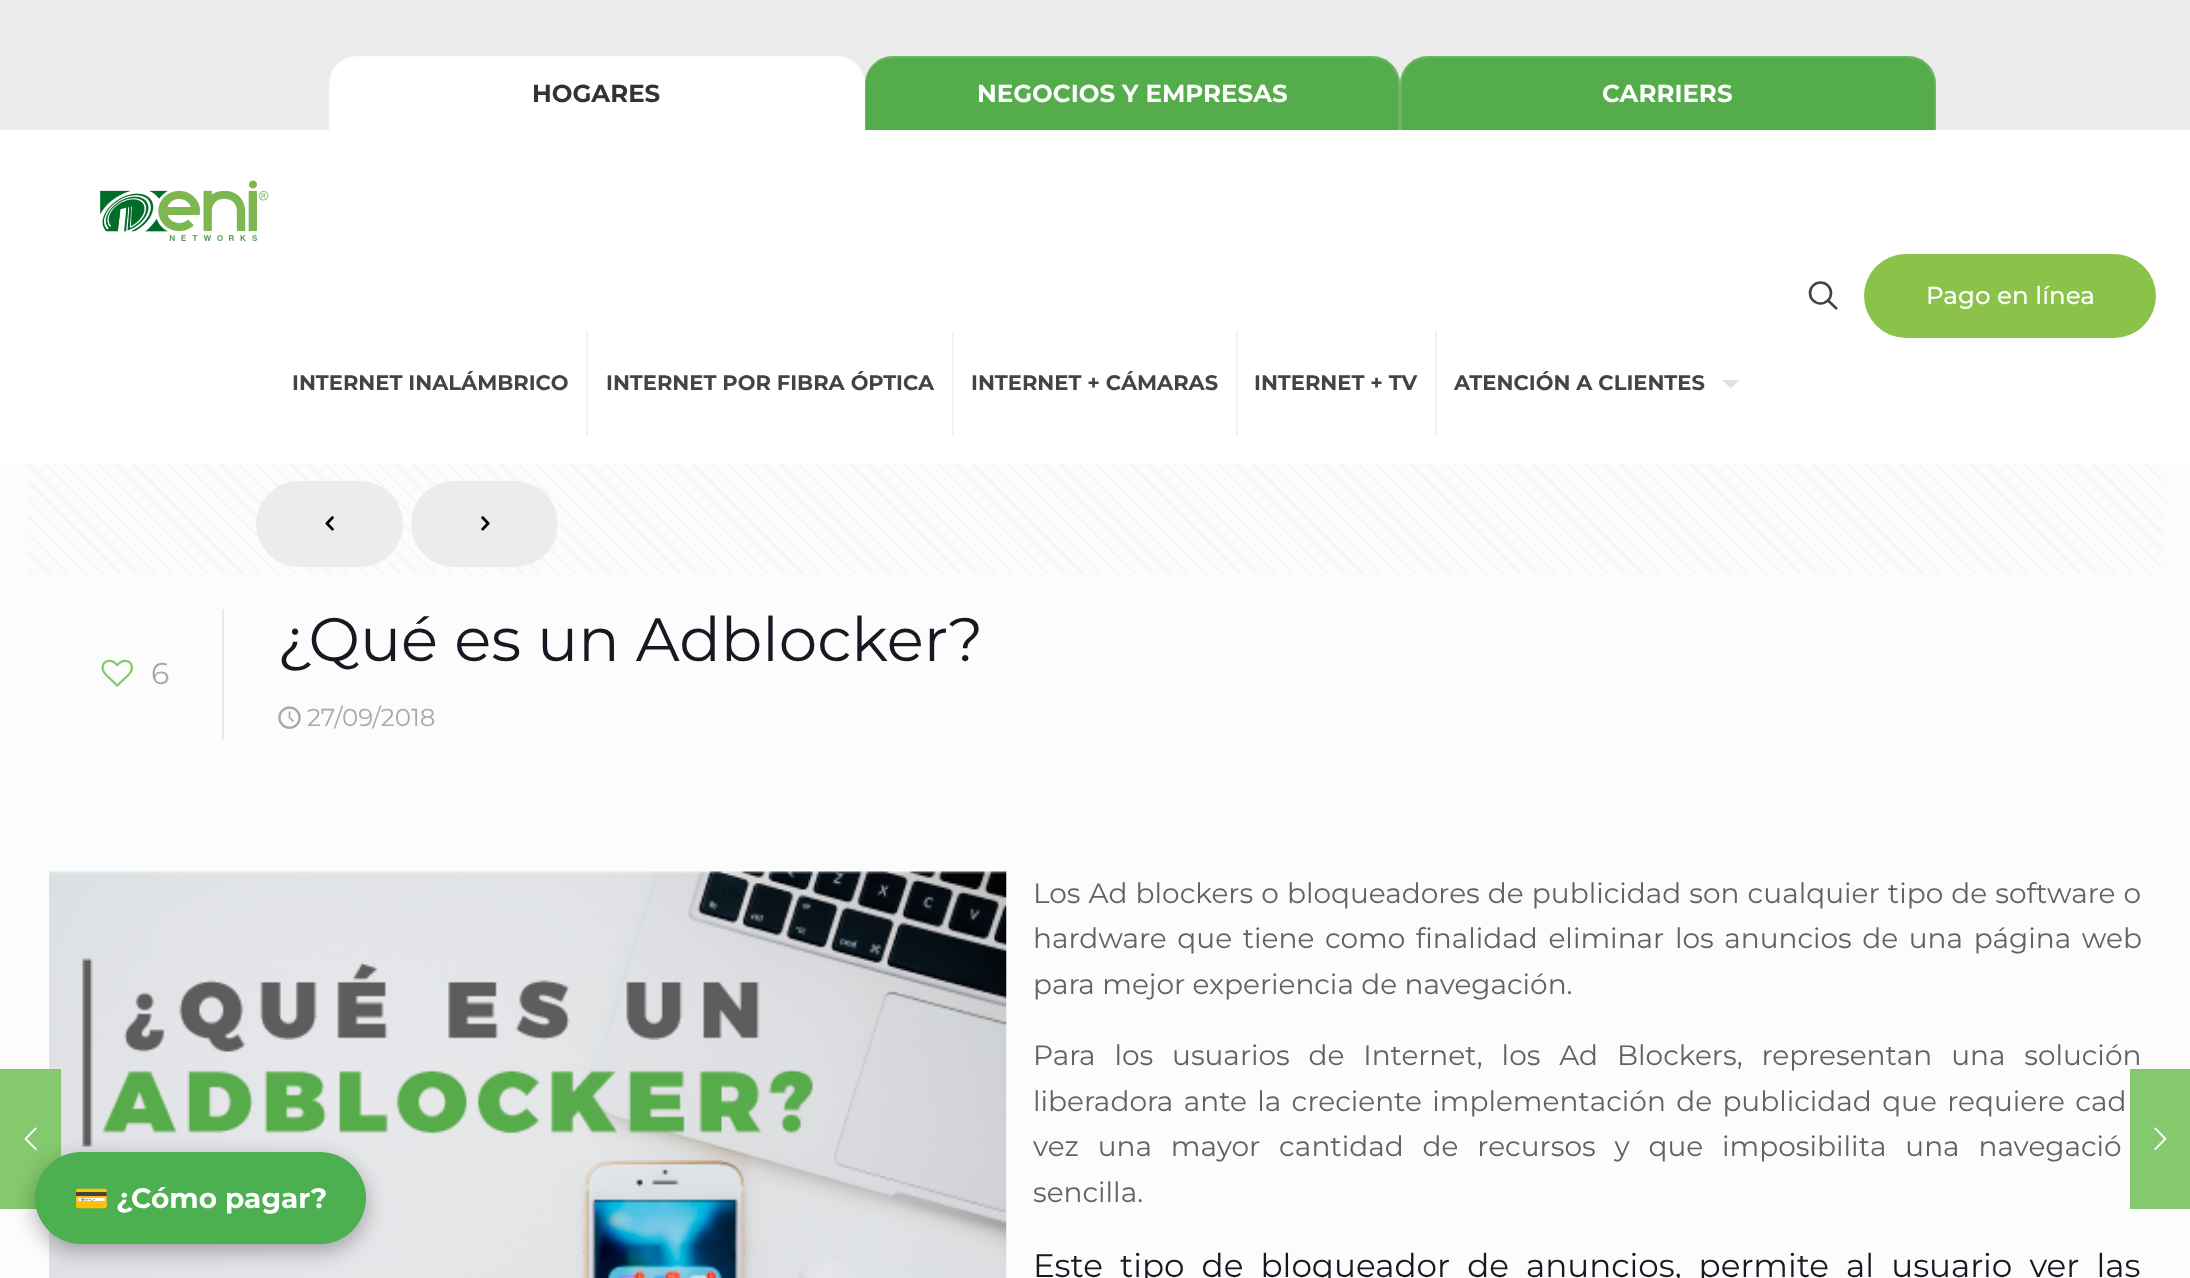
<?xml version="1.0" encoding="UTF-8"?>
<svg xmlns="http://www.w3.org/2000/svg" xmlns:xlink="http://www.w3.org/1999/xlink" width="2190" height="1278">
  <rect width="100%" height="100%" fill="#fcfcfc" />
  <image x="49" y="871" width="958" height="407" xlink:href="image8.png" />
  <rect y="1069" width="61" height="140" fill="#84c96e" />
  <image x="24" y="1127" width="13" height="24" xlink:href="image1.png" />
  <rect width="2190" height="130" fill="#ebebeb" />
  <path d="M 357 56 h 480 c 15.5 0 28 12.5 28 28 v 46 h -536 v -46 c 0 -15.5 12.5 -28 28 -28 z" fill="#ffffff" />
  <path d="M 357 56 h 479 c 16 0 28 13 28 28 v 46 h -535 v -46 c 0 -15 13 -28 28 -28 z m 0 2 h 479 c 15 0 27 12 27 26 v 46 h -532 v -46 c 0 -14 12 -26 26 -26 z" fill="#eeeeee" fill-opacity="0.16" fill-rule="evenodd" />
  <path d="M 893 56 h 479 c 15.5 0 28 12.5 28 28 v 46 h -535 v -46 c 0 -15.5 12.5 -28 28 -28 z" fill="#55ac4b" />
  <path d="M 892 56 h 480 c 15 0 28 13 28 28 v 46 h -536 v -46 c 0 -15 13 -28 28 -28 z m 0 2 h 480 c 14 0 26 12 26 26 v 46 h -532 v -46 c 0 -14 12 -26 26 -26 z" fill="#eeeeee" fill-opacity="0.16" fill-rule="evenodd" />
  <path d="M 1428 56 h 480 c 15.5 0 28 12.5 28 28 v 46 h -536 v -46 c 0 -15.5 12.5 -28 28 -28 z" fill="#55ac4b" />
  <path d="M 1428 56 h 480 c 15 0 28 13 28 28 v 46 h -536 v -46 c 0 -15 13 -28 28 -28 z m 0 2 h 480 c 14 0 26 12 26 26 v 46 h -532 v -46 c 0 -14 12 -26 26 -26 z" fill="#eeeeee" fill-opacity="0.16" fill-rule="evenodd" />
  <rect y="130" width="2190" height="334" fill="#ffffff" />
  <circle cx="1820.5" cy="293" r="10.5" fill="none" stroke="#444444" stroke-width="2.6" />
  <path d="M 1828 300.5 l 9 8.5" fill="none" stroke="#444444" stroke-width="2.6" />
  <rect x="1864" y="254" width="292" height="84" rx="42" fill="#8bc34a" />
  <image x="100" y="180" width="169" height="61" xlink:href="image2.png" />
  <rect x="586" y="331" width="2" height="105" fill="#f2f2f2" />
  <rect x="952" y="331" width="2" height="105" fill="#f2f2f2" />
  <rect x="1236" y="331" width="2" height="105" fill="#f2f2f2" />
  <rect x="1435" y="331" width="2" height="105" fill="#f2f2f2" />
  <path d="M 1722 380 h 17.5 l -8.5 8.5 z" fill="#e0e0e0" />
  <image x="28" y="464" width="2135" height="110" xlink:href="image3.png" />
  <rect x="256" y="481" width="147" height="86" rx="43" fill="#ececee" />
  <image x="325" y="516" width="9" height="15" xlink:href="image4.png" />
  <rect x="411" y="481" width="147" height="86" rx="43" fill="#ececee" />
  <image x="481" y="516" width="9" height="15" xlink:href="image5.png" />
  <image x="101" y="659" width="32" height="28" xlink:href="image6.png" />
  <rect x="222" y="609" width="2" height="131" fill="#e8e8e8" />
  <image x="278" y="706" width="23" height="23" xlink:href="image7.png" />
  <rect x="35" y="1159" width="331" height="92" rx="46" fill="#000000" fill-opacity="0.3" filter="blur(10.5px)" />
  <rect x="35" y="1152" width="331" height="92" rx="46" fill="#4caf50" />
  <text x="532" y="102" style="font-family: Montserrat; font-size: 24.5px; font-weight: 100; fill: #333333">HOGARES</text>
  <text x="977" y="102" style="font-family: Montserrat; font-size: 24.5px; font-weight: 100; fill: #ffffff">NEGOCIOS Y EMPRESAS</text>
  <text x="1602" y="102" style="font-family: Montserrat; font-size: 24.5px; font-weight: 100; fill: #ffffff">CARRIERS</text>
  <text x="1926" y="304" style="font-family: 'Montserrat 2'; font-size: 24.5px; font-weight: 100; fill: #ffffff">Pago en línea</text>
  <text x="292" y="390" style="font-family: Montserrat; font-size: 21px; font-weight: 100; fill: #444444">INTERNET INALÁMBRICO</text>
  <text x="606" y="390" style="font-family: Montserrat; font-size: 21px; font-weight: 100; fill: #444444">INTERNET POR FIBRA ÓPTICA</text>
  <text x="971" y="390" style="font-family: Montserrat; font-size: 21px; font-weight: 100; fill: #444444">INTERNET + CÁMARAS</text>
  <text x="1254" y="390" style="font-family: Montserrat; font-size: 21px; font-weight: 100; fill: #444444">INTERNET + TV</text>
  <text x="1454" y="390" style="font-family: Montserrat; font-size: 21px; font-weight: 100; fill: #444444">ATENCIÓN A CLIENTES</text>
  <text x="151" y="684" style="font-family: 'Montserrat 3'; font-size: 30px; font-weight: 100; fill: #a8a8a8">6</text>
  <text x="277" y="661" style="font-family: 'Montserrat 3'; font-size: 61.25px; font-weight: 100; fill: #161922">¿Qué es un Adblocker?</text>
  <text x="307" y="726" style="font-family: 'Montserrat 3'; font-size: 24.5px; font-weight: 100; fill: #a8a8a8">27/09/2018</text>
  <text x="1033" y="903" word-spacing="0.75" style="font-family: 'Montserrat 3'; font-size: 28px; font-weight: 100; fill: #626262">Los Ad blockers o bloqueadores de publicidad son cualquier tipo de software o</text>
  <text x="1033" y="948" word-spacing="3.25" style="font-family: 'Montserrat 3'; font-size: 28px; font-weight: 100; fill: #626262">hardware que tiene como finalidad eliminar los anuncios de una página web</text>
  <text x="1033" y="994" style="font-family: 'Montserrat 3'; font-size: 28px; font-weight: 100; fill: #626262">para mejor experiencia de navegación.</text>
  <text x="1033" y="1065" word-spacing="11.5" style="font-family: 'Montserrat 3'; font-size: 28px; font-weight: 100; fill: #626262">Para los usuarios de Internet, los Ad Blockers, representan una solución</text>
  <text x="1033" y="1111" word-spacing="3" style="font-family: 'Montserrat 3'; font-size: 28px; font-weight: 100; fill: #626262">liberadora ante la creciente implementación de publicidad que requiere cad</text>
  <text x="1033" y="1156" word-spacing="11.5" style="font-family: 'Montserrat 3'; font-size: 28px; font-weight: 100; fill: #626262">vez una mayor cantidad de recursos y que imposibilita una navegació</text>
  <text x="1033" y="1202" style="font-family: 'Montserrat 3'; font-size: 28px; font-weight: 100; fill: #626262">sencilla.</text>
  <text x="1033" y="1277" word-spacing="8.5" style="font-family: 'Montserrat 3'; font-size: 32.65px; font-weight: 100; fill: #161922">Este tipo de bloqueador de anuncios, permite al usuario ver las</text>
  <rect x="2130" y="1069" width="60" height="140" fill="#84c96e" />
  <image x="2154" y="1127" width="13" height="24" xlink:href="image9.png" />
  <text x="74" y="1208" style="font-family: Noto Color Emoji; font-size: 28px; font-weight: bold; fill: #ffffff">💳</text>
  <text x="116" y="1208" style="font-family: Montserrat; font-size: 28px; font-weight: 100; fill: #ffffff">¿Cómo pagar?</text>
</svg>
